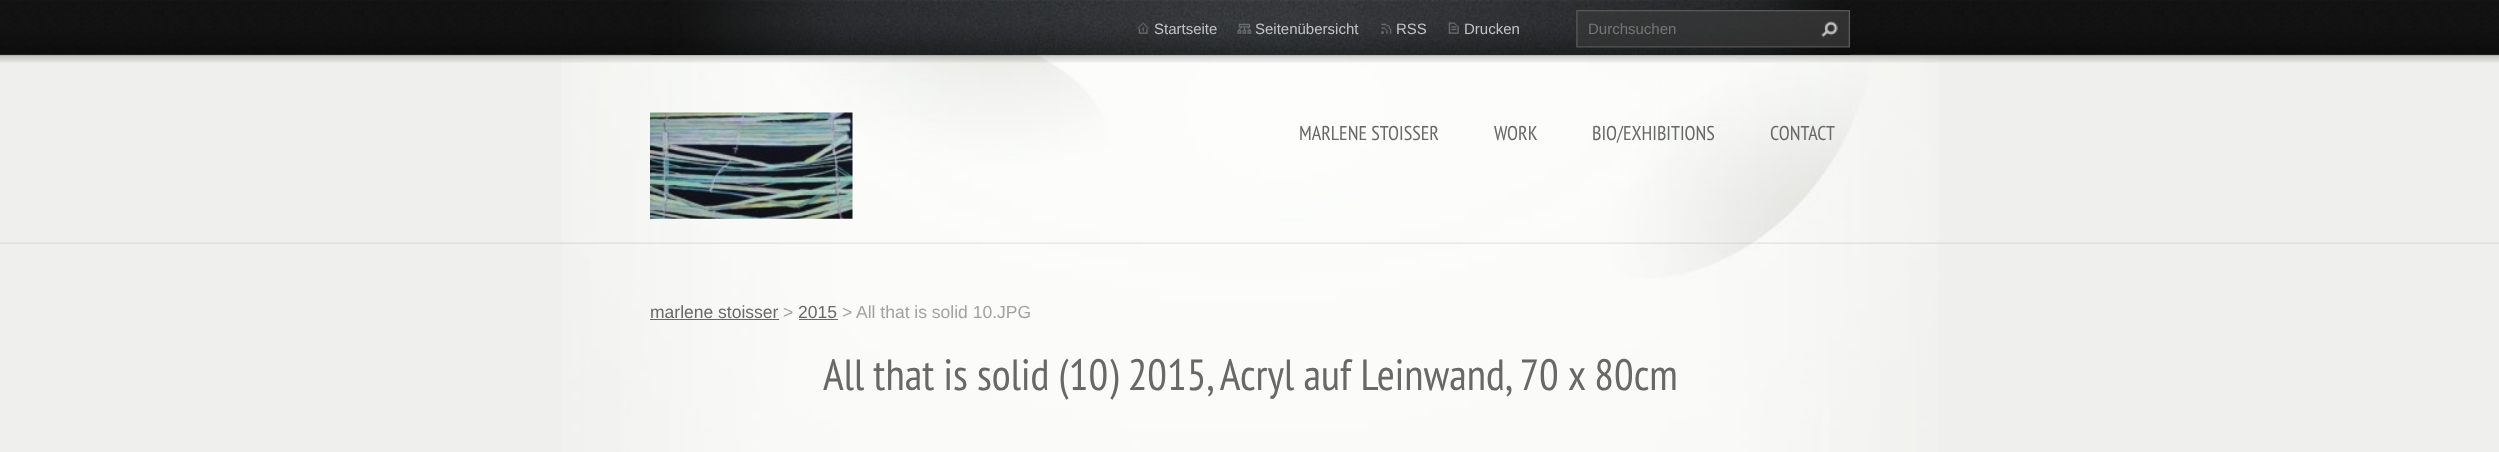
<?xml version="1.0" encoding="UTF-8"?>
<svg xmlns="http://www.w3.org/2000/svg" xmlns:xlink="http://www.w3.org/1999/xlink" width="2499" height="452">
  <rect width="100%" height="100%" fill="#efefed" />
  <image x="561" y="54" width="1378" height="398" xlink:href="image1.png" />
  <image x="0" y="242" width="2499" height="2" xlink:href="image2.png" />
  <image x="0" y="0" width="2499" height="63" xlink:href="image3.png" />
  <image x="650" y="0" width="1200" height="55" xlink:href="image4.png" />
  <image x="1137" y="22" width="12" height="12" xlink:href="image5.png" />
  <image x="1237" y="23" width="15" height="11" xlink:href="image6.png" />
  <image x="1381" y="23" width="11" height="11" xlink:href="image7.png" />
  <image x="1448" y="22" width="11" height="12" xlink:href="image8.png" />
  <image x="1576" y="10" width="274" height="38" xlink:href="image9.png" />
  <image x="1821" y="21" width="17" height="17" xlink:href="image10.png" />
  <image x="650" y="112" width="203" height="107" xlink:href="image11.png" />
  <rect x="650" y="319" width="129" height="1" fill="#686868" />
  <rect x="799" y="319" width="39" height="1" fill="#686868" />
  <text x="1154" y="34" style="font-family: Liberation Sans; font-size: 15px; fill: #c3c3c3">Startseite</text>
  <text x="1255" y="34" style="font-family: Liberation Sans; font-size: 15px; fill: #c3c3c3">Seitenübersicht</text>
  <text x="1396" y="34" style="font-family: Liberation Sans; font-size: 15px; fill: #c3c3c3">RSS</text>
  <text x="1464" y="34" style="font-family: Liberation Sans; font-size: 15px; fill: #c3c3c3">Drucken</text>
  <text x="1588" y="34" style="font-family: Liberation Sans; font-size: 15px; fill: #757575">Durchsuchen</text>
  <text x="1299" y="140" style="font-family: PT Sans Narrow; font-size: 20px; fill: #686868">MARLENE STOISSER</text>
  <text x="1494" y="140" style="font-family: PT Sans Narrow; font-size: 20px; fill: #686868">WORK</text>
  <text x="1592" y="140" style="font-family: PT Sans Narrow; font-size: 20px; fill: #686868">BIO/EXHIBITIONS</text>
  <text x="1770" y="140" style="font-family: PT Sans Narrow; font-size: 20px; fill: #686868">CONTACT</text>
  <text x="650" y="318" style="font-family: Liberation Sans; font-size: 17.5px; fill: #686868">marlene stoisser</text>
  <text x="783" y="318" style="font-family: Liberation Sans; font-size: 17.5px; fill: #a3a1a1">&gt;</text>
  <text x="798" y="318" style="font-family: Liberation Sans; font-size: 17.5px; fill: #686868">2015</text>
  <text x="842" y="318" style="font-family: Liberation Sans; font-size: 17.5px; fill: #a3a1a1">&gt;</text>
  <text x="856" y="318" style="font-family: Liberation Sans; font-size: 17.5px; fill: #a3a1a1">All that is solid 10.JPG</text>
  <text x="823" y="390" style="font-family: PT Sans Narrow; font-size: 43.75px; fill: #686868">All that is solid (10) 2015, Acryl auf Leinwand, 70 x 80cm</text>
</svg>
